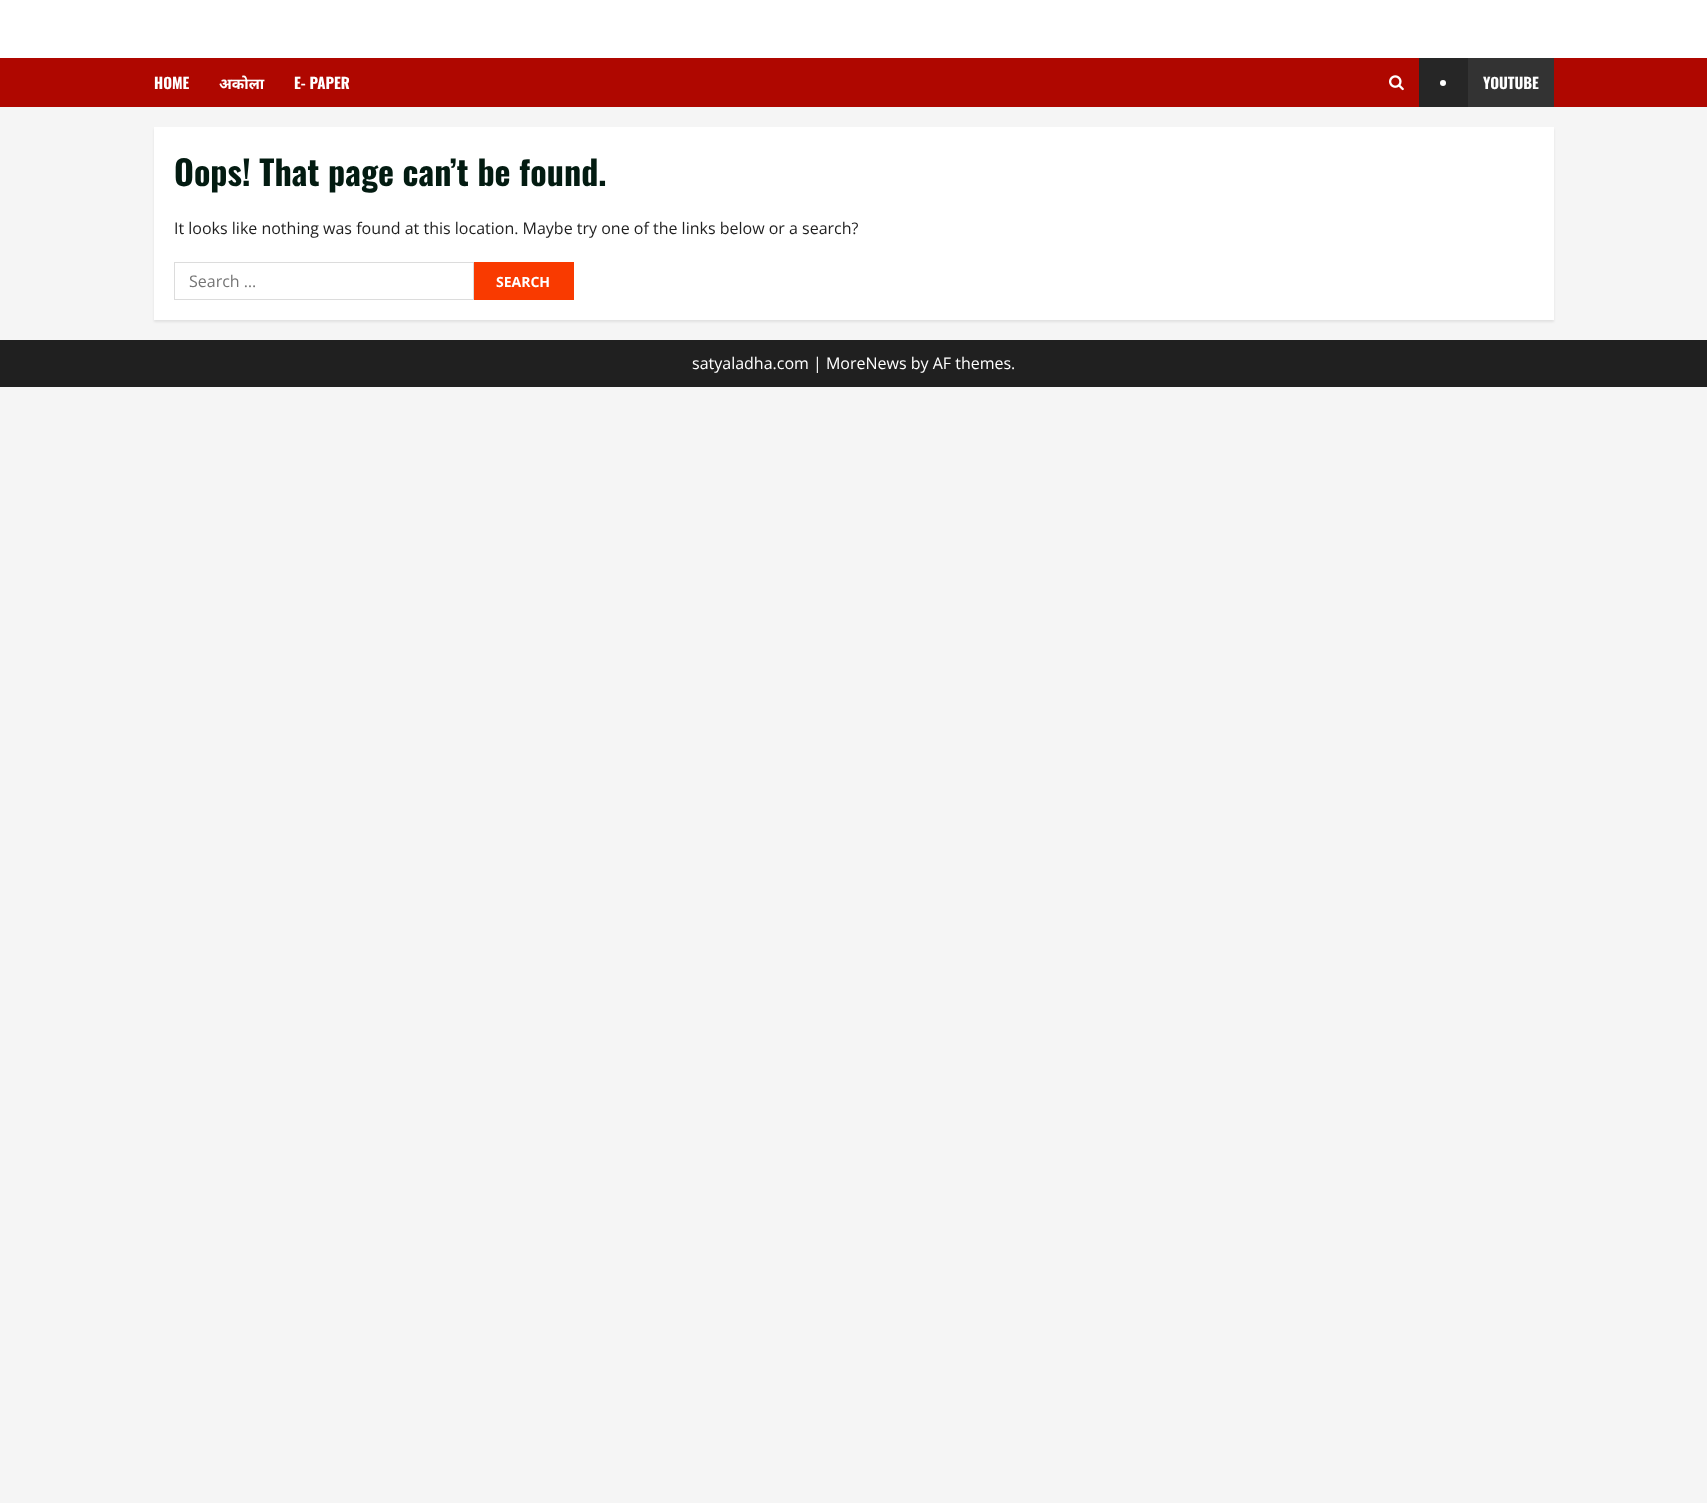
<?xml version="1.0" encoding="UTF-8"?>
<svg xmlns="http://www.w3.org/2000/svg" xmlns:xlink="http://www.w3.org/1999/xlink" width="1707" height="1503">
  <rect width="100%" height="100%" fill="#f5f5f5" />
  <rect width="1707" height="58" fill="#ffffff" />
  <rect y="58" width="1707" height="49" fill="#af0700" />
  <image x="1389" y="75" width="15" height="16" xlink:href="image1.png" />
  <rect x="1468" y="58" width="86" height="49" fill="#333333" />
  <rect x="1419" y="58" width="49" height="49" fill="#262626" />
  <circle cx="1443" cy="83" r="3" fill="#ffffff" />
  <rect x="154" y="129" width="1400" height="193" fill="#000000" fill-opacity="0.08" filter="blur(1px)" />
  <rect x="154" y="127" width="1400" height="193" fill="#ffffff" />
  <rect x="174.5" y="262.5" width="299" height="37" fill="none" stroke="#dcdcdc" />
  <rect x="474" y="262" width="100" height="38" fill="#f93a00" />
  <rect y="340" width="1707" height="47" fill="#202020" />
  <text x="154" y="89" style="font-family: Oswald; font-size: 15px; font-weight: bold; fill: #ffffff">HOME</text>
  <text x="219" y="89" style="font-family: Noto Sans; font-size: 15px; font-weight: bold; fill: #ffffff">अकोला</text>
  <text x="294" y="89" style="font-family: Oswald; font-size: 15px; font-weight: bold; fill: #ffffff">E- PAPER</text>
  <text x="1483" y="89" style="font-family: Oswald; font-size: 15px; font-weight: bold; fill: #ffffff">YOUTUBE</text>
  <text x="174" y="186" style="font-family: Oswald; font-size: 34px; font-weight: bold; fill: #031b11">Oops! That page can’t be found.</text>
  <text x="174" y="234" style="font-family: Open Sans; font-size: 16px; fill: #1f1f1f">It looks like nothing was found at this location. Maybe try one of the links below or a search?</text>
  <text x="189" y="287" style="font-family: Open Sans; font-size: 16px; fill: #757575">Search …</text>
  <text x="496" y="287" style="font-family: Open Sans; font-size: 14px; font-weight: bold; fill: #ffffff">SEARCH</text>
  <text x="692" y="369" style="font-family: Open Sans; font-size: 16px; fill: #ffffff">satyaladha.com | MoreNews by AF themes.</text>
</svg>
